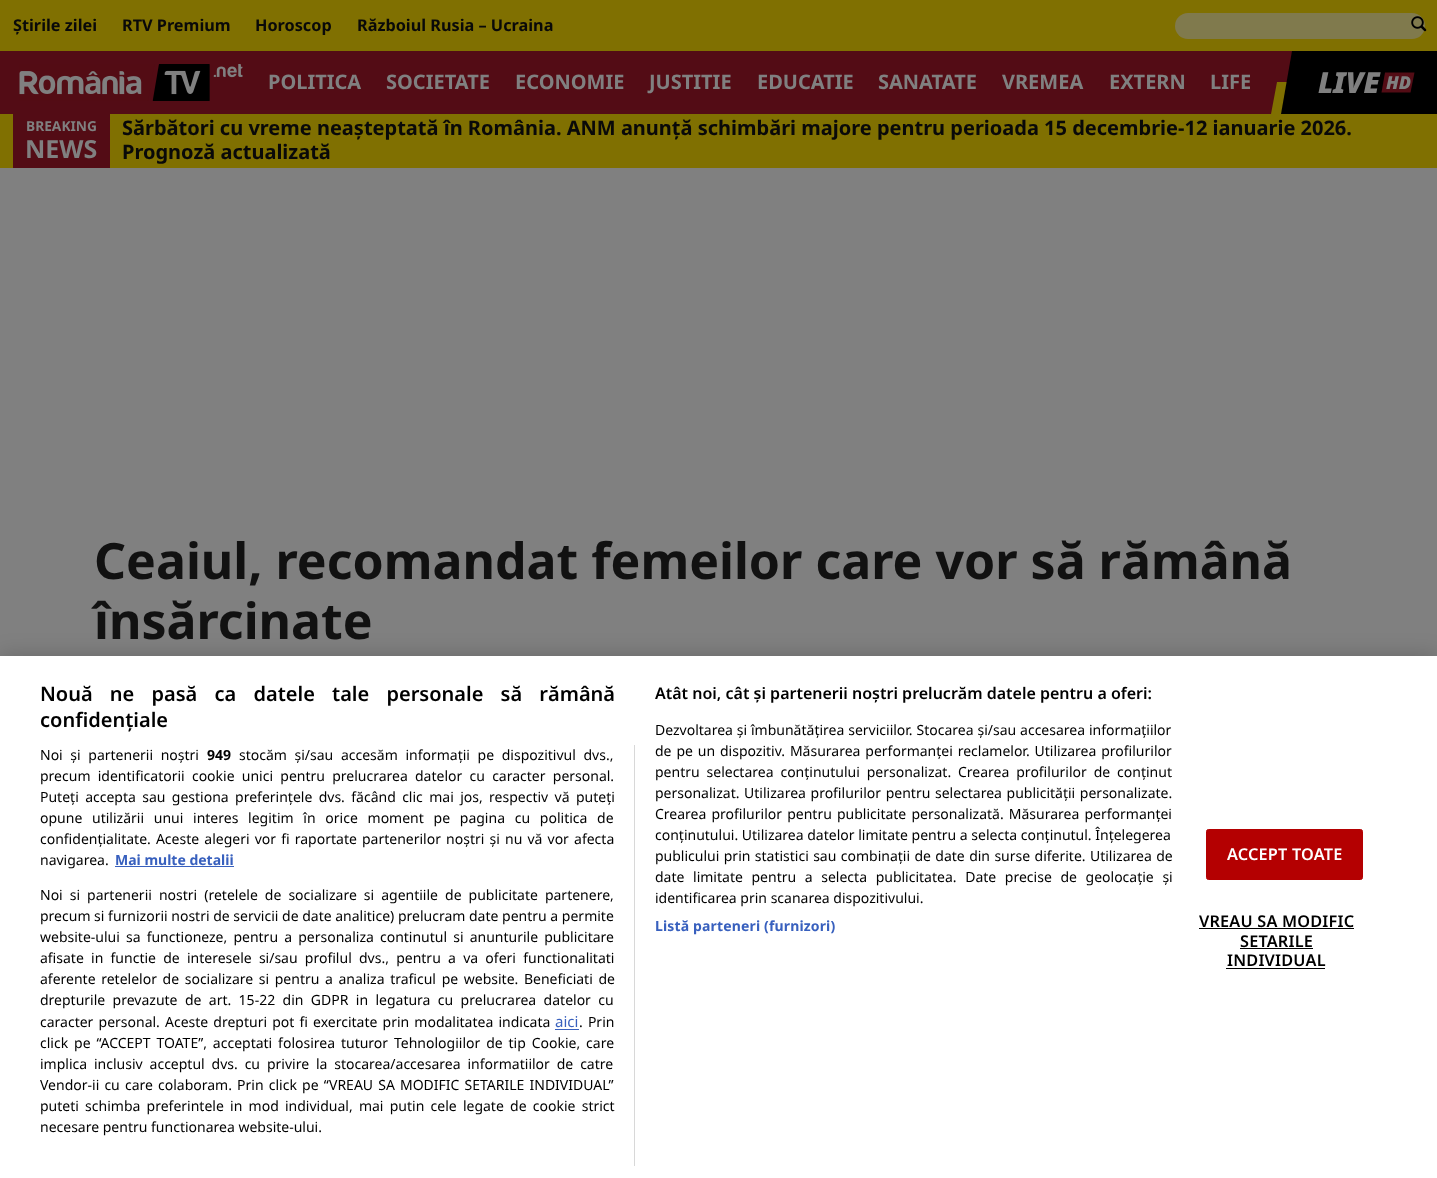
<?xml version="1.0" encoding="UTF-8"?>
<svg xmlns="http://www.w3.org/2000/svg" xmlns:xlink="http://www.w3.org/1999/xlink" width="1437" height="1178">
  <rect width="100%" height="100%" fill="#808080" />
  <rect width="1437" height="51" fill="#807001" />
  <rect x="1175" y="13" width="250" height="26" rx="13" fill="#807a4d" />
  <image x="1411" y="16" width="16" height="16" xlink:href="image1.png" />
  <rect y="51" width="1292" height="63" fill="#530c15" />
  <image x="19" y="64" width="224" height="37" xlink:href="image2.png" />
  <rect x="1426" y="51" width="11" height="63" fill="#000000" />
  <path d="M 1277 82 h 145 l -6 32 h -145 z" fill="#807001" />
  <path d="M 1292 51 h 145 l -11 63 h -145 z" fill="#000000" />
  <path d="M 1385 72.5 h 29.5 l -4 20 h -29 z" fill="#530c15" />
  <rect y="114" width="1437" height="54" fill="#807001" />
  <rect x="13" y="114" width="97" height="54" fill="#530c15" />
  <rect y="656" width="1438" height="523" fill="#000000" fill-opacity="0.2" filter="blur(11px)" />
  <rect y="656" width="1437" height="522" fill="#ffffff" />
  <rect x="634" y="745" width="1" height="421" fill="#d8d8d8" />
  <rect x="115" y="866" width="119" height="1" fill="#3860be" />
  <rect x="555" y="1029" width="24" height="1" fill="#3860be" />
  <rect x="1206.5" y="829.5" width="156" height="50" rx="2" fill="#b40001" stroke="#b40001" />
  <rect x="1199" y="928" width="155" height="1" fill="#000000" />
  <rect x="1240" y="948" width="73" height="1" fill="#000000" />
  <rect x="1226" y="968" width="99" height="1" fill="#000000" />
  <text x="13" y="31" style="font-family: Noto Sans; font-size: 16.25px; font-weight: bold; fill: #090909">Știrile zilei</text>
  <text x="122" y="31" style="font-family: Noto Sans; font-size: 16.25px; font-weight: bold; fill: #090909">RTV Premium</text>
  <text x="255" y="31" style="font-family: Noto Sans; font-size: 16.25px; font-weight: bold; fill: #090909">Horoscop</text>
  <text x="357" y="31" style="font-family: Noto Sans; font-size: 16.25px; font-weight: bold; fill: #090909">Războiul Rusia – Ucraina</text>
  <text x="268" y="89" style="font-family: Noto Sans; font-size: 20px; font-weight: bold; fill: #808080">POLITICA</text>
  <text x="386" y="89" style="font-family: Noto Sans; font-size: 20px; font-weight: bold; fill: #808080">SOCIETATE</text>
  <text x="515" y="89" style="font-family: Noto Sans; font-size: 20px; font-weight: bold; fill: #808080">ECONOMIE</text>
  <text x="649" y="89" style="font-family: Noto Sans; font-size: 20px; font-weight: bold; fill: #808080">JUSTITIE</text>
  <text x="757" y="89" style="font-family: Noto Sans; font-size: 20px; font-weight: bold; fill: #808080">EDUCATIE</text>
  <text x="878" y="89" style="font-family: Noto Sans; font-size: 20px; font-weight: bold; fill: #808080">SANATATE</text>
  <text x="1002" y="89" style="font-family: Noto Sans; font-size: 20px; font-weight: bold; fill: #808080">VREMEA</text>
  <text x="1109" y="89" style="font-family: Noto Sans; font-size: 20px; font-weight: bold; fill: #808080">EXTERN</text>
  <text x="1210" y="89" style="font-family: Noto Sans; font-size: 20px; font-weight: bold; fill: #808080">LIFE</text>
  <text x="1318" y="93" style="font-family: Noto Sans; font-size: 29px; font-weight: 900; font-style: italic; fill: #808080">LIVE</text>
  <text x="1386" y="89" style="font-family: Noto Sans; font-size: 18px; font-weight: 900; font-style: italic; fill: #808080">HD</text>
  <text x="26" y="131" style="font-family: Noto Sans; font-size: 13.75px; font-weight: bold; fill: #808080">BREAKING</text>
  <text x="25" y="158" style="font-family: Noto Sans; font-size: 25px; font-weight: bold; fill: #808080">NEWS</text>
  <text x="122" y="135" style="font-family: Noto Sans; font-size: 20px; font-weight: bold; fill: #090909">Sărbători cu vreme neașteptată în România. ANM anunță schimbări majore pentru perioada 15 decembrie-12 ianuarie 2026.</text>
  <text x="122" y="159" style="font-family: Noto Sans; font-size: 20px; font-weight: bold; fill: #090909">Prognoză actualizată</text>
  <text x="94" y="579" style="font-family: Noto Sans; font-size: 50px; font-weight: bold; fill: #111111">Ceaiul, recomandat femeilor care vor să rămână</text>
  <text x="94" y="639" style="font-family: Noto Sans; font-size: 50px; font-weight: bold; fill: #111111">însărcinate</text>
  <text x="40" y="701" word-spacing="12" style="font-family: Noto Sans; font-size: 20px; font-weight: 600; fill: #000000">Nouă ne pasă ca datele tale personale să rămână</text>
  <text x="40" y="727" style="font-family: Noto Sans; font-size: 20px; font-weight: 600; fill: #000000">confidențiale</text>
  <text x="655" y="699" style="font-family: Noto Sans; font-size: 16px; font-weight: 600; fill: #000000">Atât noi, cât și partenerii noștri prelucrăm datele pentru a oferi:</text>
  <text x="655" y="735" word-spacing="0.25" style="font-family: Noto Sans; font-size: 14px; fill: #000000">Dezvoltarea și îmbunătățirea serviciilor. Stocarea și/sau accesarea informațiilor</text>
  <text x="655" y="756" word-spacing="1.25" style="font-family: Noto Sans; font-size: 14px; fill: #000000">de pe un dispozitiv. Măsurarea performanței reclamelor. Utilizarea profilurilor</text>
  <text x="655" y="777" word-spacing="3.25" style="font-family: Noto Sans; font-size: 14px; fill: #000000">pentru selectarea conținutului personalizat. Crearea profilurilor de conținut</text>
  <text x="655" y="798" word-spacing="1" style="font-family: Noto Sans; font-size: 14px; fill: #000000">personalizat. Utilizarea profilurilor pentru selectarea publicității personalizate.</text>
  <text x="655" y="819" word-spacing="1.5" style="font-family: Noto Sans; font-size: 14px; fill: #000000">Crearea profilurilor pentru publicitate personalizată. Măsurarea performanței</text>
  <text x="655" y="840" style="font-family: Noto Sans; font-size: 14px; fill: #000000">conținutului. Utilizarea datelor limitate pentru a selecta conținutul. Înțelegerea</text>
  <text x="655" y="861" word-spacing="0.75" style="font-family: Noto Sans; font-size: 14px; fill: #000000">publicului prin statistici sau combinații de date din surse diferite. Utilizarea de</text>
  <text x="655" y="882" word-spacing="5" style="font-family: Noto Sans; font-size: 14px; fill: #000000">date limitate pentru a selecta publicitatea. Date precise de geolocație și</text>
  <text x="655" y="903" style="font-family: Noto Sans; font-size: 14px; fill: #000000">identificarea prin scanarea dispozitivului.</text>
  <text x="655" y="931" style="font-family: Noto Sans; font-size: 14px; font-weight: bold; letter-spacing: 0.15px; fill: #3860be">Listă parteneri (furnizori)</text>
  <text x="40" y="760" word-spacing="4" style="font-family: Noto Sans; font-size: 14px; fill: #000000">Noi și partenerii noștri</text>
  <text x="207" y="760" style="font-family: Noto Sans; font-size: 14px; font-weight: bold; fill: #000000">949</text>
  <text x="239" y="760" word-spacing="4" style="font-family: Noto Sans; font-size: 14px; fill: #000000">stocăm și/sau accesăm informații pe dispozitivul dvs.,</text>
  <text x="40" y="781" word-spacing="3.6" style="font-family: Noto Sans; font-size: 14px; fill: #000000">precum identificatorii cookie unici pentru prelucrarea datelor cu caracter personal.</text>
  <text x="40" y="802" word-spacing="2.75" style="font-family: Noto Sans; font-size: 14px; fill: #000000">Puteți accepta sau gestiona preferințele dvs. făcând clic mai jos, respectiv vă puteți</text>
  <text x="40" y="823" word-spacing="6.1" style="font-family: Noto Sans; font-size: 14px; fill: #000000">opune utilizării unui interes legitim în orice moment pe pagina cu politica de</text>
  <text x="40" y="844" word-spacing="1.5" style="font-family: Noto Sans; font-size: 14px; fill: #000000">confidențialitate. Aceste alegeri vor fi raportate partenerilor noștri și nu vă vor afecta</text>
  <text x="40" y="865" style="font-family: Noto Sans; font-size: 14px; fill: #000000">navigarea.</text>
  <text x="115" y="865" style="font-family: Noto Sans; font-size: 14px; font-weight: bold; fill: #3860be">Mai multe detalii</text>
  <text x="40" y="900" word-spacing="3.4" style="font-family: Noto Sans; font-size: 14px; fill: #000000">Noi si partenerii nostri (retelele de socializare si agentiile de publicitate partenere,</text>
  <text x="40" y="921" style="font-family: Noto Sans; font-size: 14px; fill: #000000">precum si furnizorii nostri de servicii de date analitice) prelucram date pentru a permite</text>
  <text x="40" y="942" word-spacing="2.5" style="font-family: Noto Sans; font-size: 14px; fill: #000000">website-ului sa functioneze, pentru a personaliza continutul si anunturile publicitare</text>
  <text x="40" y="963" word-spacing="3.6" style="font-family: Noto Sans; font-size: 14px; fill: #000000">afisate in functie de interesele si/sau profilul dvs., pentru a va oferi functionalitati</text>
  <text x="40" y="984" word-spacing="2" style="font-family: Noto Sans; font-size: 14px; fill: #000000">aferente retelelor de socializare si pentru a analiza traficul pe website. Beneficiati de</text>
  <text x="40" y="1005" word-spacing="3.75" style="font-family: Noto Sans; font-size: 14px; fill: #000000">drepturile prevazute de art. 15-22 din GDPR in legatura cu prelucrarea datelor cu</text>
  <text x="40" y="1027" word-spacing="1.5" style="font-family: Noto Sans; font-size: 14px; fill: #000000">caracter personal. Aceste drepturi pot fi exercitate prin modalitatea indicata</text>
  <text x="555" y="1027" style="font-family: Noto Sans; font-size: 15px; fill: #3860be">aici</text>
  <text x="579" y="1027" word-spacing="1.5" style="font-family: Noto Sans; font-size: 14px; fill: #000000">. Prin</text>
  <text x="40" y="1048" word-spacing="2.25" style="font-family: Noto Sans; font-size: 14px; fill: #000000">click pe “ACCEPT TOATE”, acceptati folosirea tuturor Tehnologiilor de tip Cookie, care</text>
  <text x="40" y="1069" word-spacing="3.25" style="font-family: Noto Sans; font-size: 14px; fill: #000000">implica inclusiv acceptul dvs. cu privire la stocarea/accesarea informatiilor de catre</text>
  <text x="40" y="1090" word-spacing="1.5" style="font-family: Noto Sans; font-size: 14px; fill: #000000">Vendor-ii cu care colaboram. Prin click pe “VREAU SA MODIFIC SETARILE INDIVIDUAL”</text>
  <text x="40" y="1111" word-spacing="2.6" style="font-family: Noto Sans; font-size: 14px; fill: #000000">puteti schimba preferintele in mod individual, mai putin cele legate de cookie strict</text>
  <text x="40" y="1132" style="font-family: Noto Sans; font-size: 14px; fill: #000000">necesare pentru functionarea website-ului.</text>
  <text x="1227" y="860" style="font-family: Noto Sans; font-size: 16.25px; font-weight: 600; letter-spacing: 0.2px; fill: #ffffff">ACCEPT TOATE</text>
  <text x="1199" y="927" style="font-family: Noto Sans; font-size: 16.25px; font-weight: 600; letter-spacing: 0.2px; fill: #000000">VREAU SA MODIFIC</text>
  <text x="1240" y="947" style="font-family: Noto Sans; font-size: 16.25px; font-weight: 600; letter-spacing: 0.2px; fill: #000000">SETARILE</text>
  <text x="1227" y="966" style="font-family: Noto Sans; font-size: 16.25px; font-weight: 600; letter-spacing: 0.2px; fill: #000000">INDIVIDUAL</text>
</svg>
